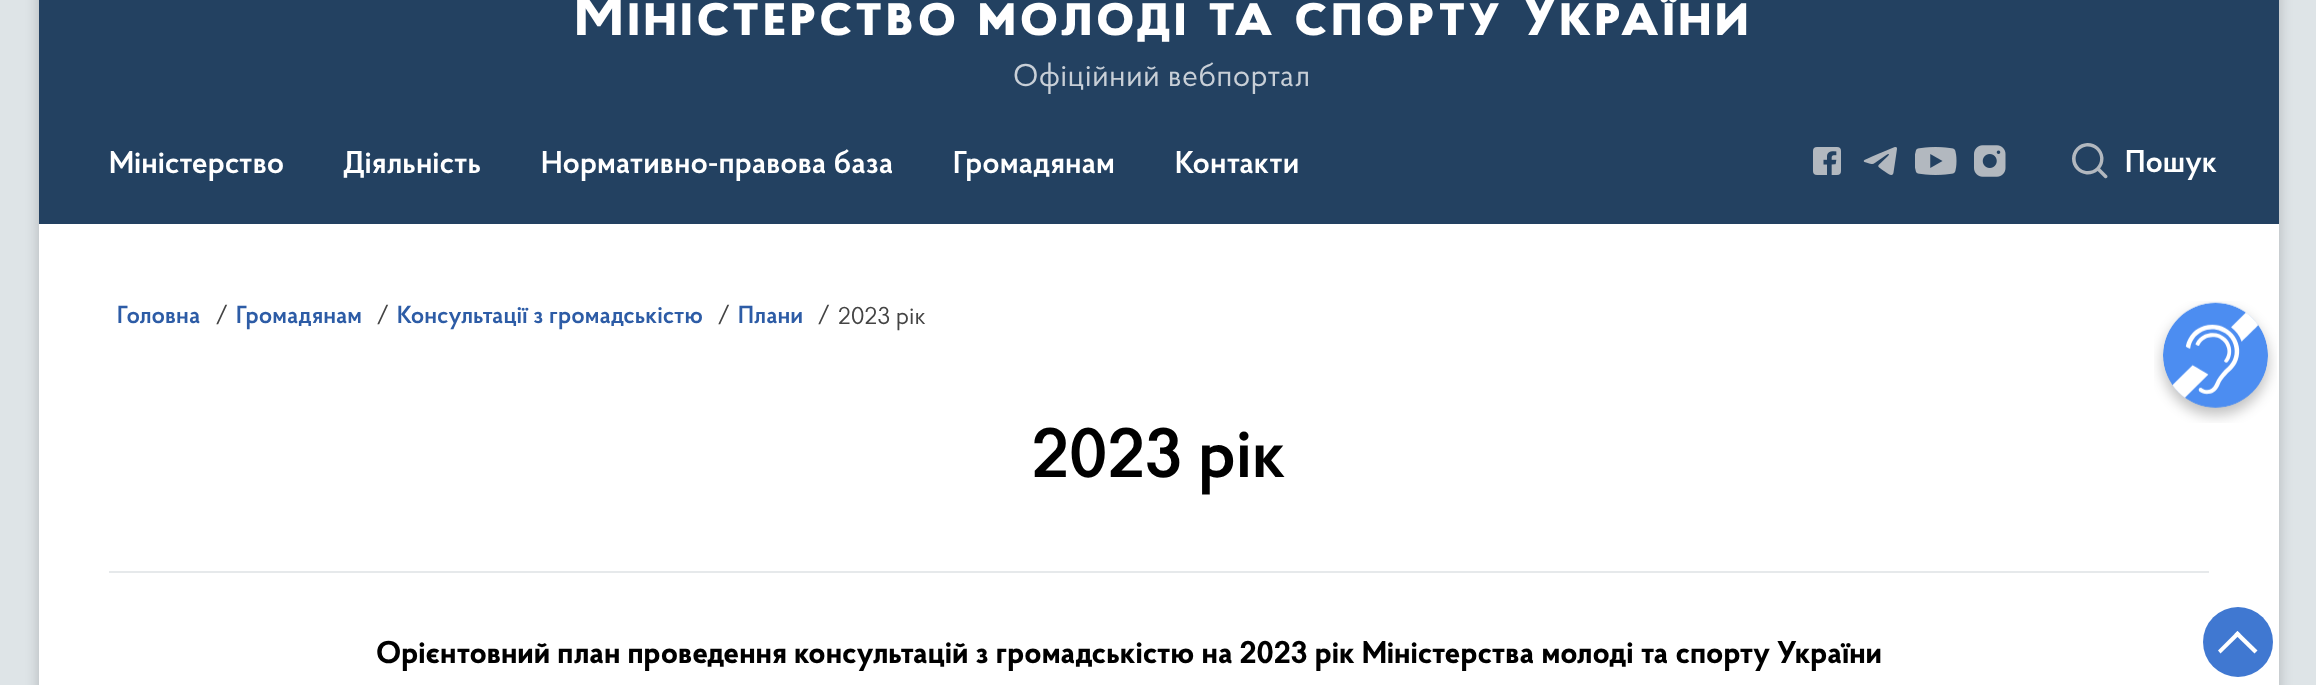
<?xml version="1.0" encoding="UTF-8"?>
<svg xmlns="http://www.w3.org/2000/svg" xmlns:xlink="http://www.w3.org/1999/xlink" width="2316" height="685">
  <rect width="100%" height="100%" fill="#dee4e7" />
  <rect x="39" y="-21" width="2240" height="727" fill="#000000" fill-opacity="0.2" filter="blur(7px)" />
  <rect x="39" y="224" width="2240" height="461" fill="#ffffff" />
  <rect x="39" width="2240" height="224" fill="#234161" />
  <image x="1813" y="147" width="28" height="28" xlink:href="image1.png" />
  <image x="1863" y="147" width="34" height="28" xlink:href="image2.png" />
  <image x="1915" y="147" width="42" height="28" xlink:href="image3.png" />
  <image x="1974" y="145" width="32" height="32" xlink:href="image4.png" />
  <image x="2072" y="143" width="36" height="36" xlink:href="image5.png" />
  <rect x="109" y="571" width="2100" height="2" fill="#e6e9eb" />
  <image x="2154" y="301" width="123" height="122" xlink:href="image6.png" />
  <circle cx="2238" cy="642" r="35" fill="#4078d1" />
  <path d="M 2234.5 634 l 3 -3 l 20 19.5 l -3 3 z" fill="#ffffff" />
  <path d="M 2237.5 631 l 3 3 l -20 19.5 l -2.5 -3 z" fill="#ffffff" />
  <text x="574" y="35" style="font-family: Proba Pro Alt; font-size: 63px; font-weight: bold; letter-spacing: 3.5px; fill: #ffffff">Міністерство молоді та спорту України</text>
  <text x="1013" y="86" style="font-family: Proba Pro; font-size: 31.5px; letter-spacing: 0.3px; fill: #c8cfd7">Офіційний вебпортал</text>
  <text x="109" y="173" style="font-family: Proba Pro; font-size: 31.5px; font-weight: 600; fill: #ffffff">Міністерство</text>
  <text x="343" y="173" style="font-family: Proba Pro; font-size: 31.5px; font-weight: 600; fill: #ffffff">Діяльність</text>
  <text x="541" y="173" style="font-family: Proba Pro; font-size: 31.5px; font-weight: 600; fill: #ffffff">Нормативно-правова база</text>
  <text x="953" y="173" style="font-family: Proba Pro; font-size: 31.5px; font-weight: 600; fill: #ffffff">Громадянам</text>
  <text x="1175" y="173" style="font-family: Proba Pro; font-size: 31.5px; font-weight: 600; fill: #ffffff">Контакти</text>
  <text x="2125" y="172" style="font-family: Proba Pro; font-size: 31.5px; font-weight: 600; fill: #ffffff">Пошук</text>
  <text x="117" y="323" style="font-family: Proba Pro; font-size: 24.5px; font-weight: 600; fill: #2d5ca6">Головна</text>
  <text x="215" y="323" style="font-family: Proba Pro; font-size: 24.5px; fill: #444444">/</text>
  <text x="236" y="323" style="font-family: Proba Pro; font-size: 24.5px; font-weight: 600; fill: #2d5ca6">Громадянам</text>
  <text x="376" y="323" style="font-family: Proba Pro; font-size: 24.5px; fill: #444444">/</text>
  <text x="397" y="323" style="font-family: Proba Pro; font-size: 24.5px; font-weight: 600; fill: #2d5ca6">Консультації з громадськістю</text>
  <text x="717" y="323" style="font-family: Proba Pro; font-size: 24.5px; fill: #444444">/</text>
  <text x="738" y="323" style="font-family: Proba Pro; font-size: 24.5px; font-weight: 600; fill: #2d5ca6">Плани</text>
  <text x="817" y="323" style="font-family: Proba Pro; font-size: 24.5px; fill: #444444">/</text>
  <text x="838" y="324" style="font-family: Proba Pro; font-size: 24.5px; fill: #444444">2023 рік</text>
  <text x="1032" y="477" style="font-family: Proba Pro; font-size: 70px; font-weight: 600; fill: #000000">2023 рік</text>
  <text x="376" y="663" style="font-family: Proba Pro; font-size: 31.5px; font-weight: bold; fill: #000000">Орієнтовний план проведення консультацій з громадськістю на 2023 рік Міністерства молоді та спорту України</text>
</svg>
